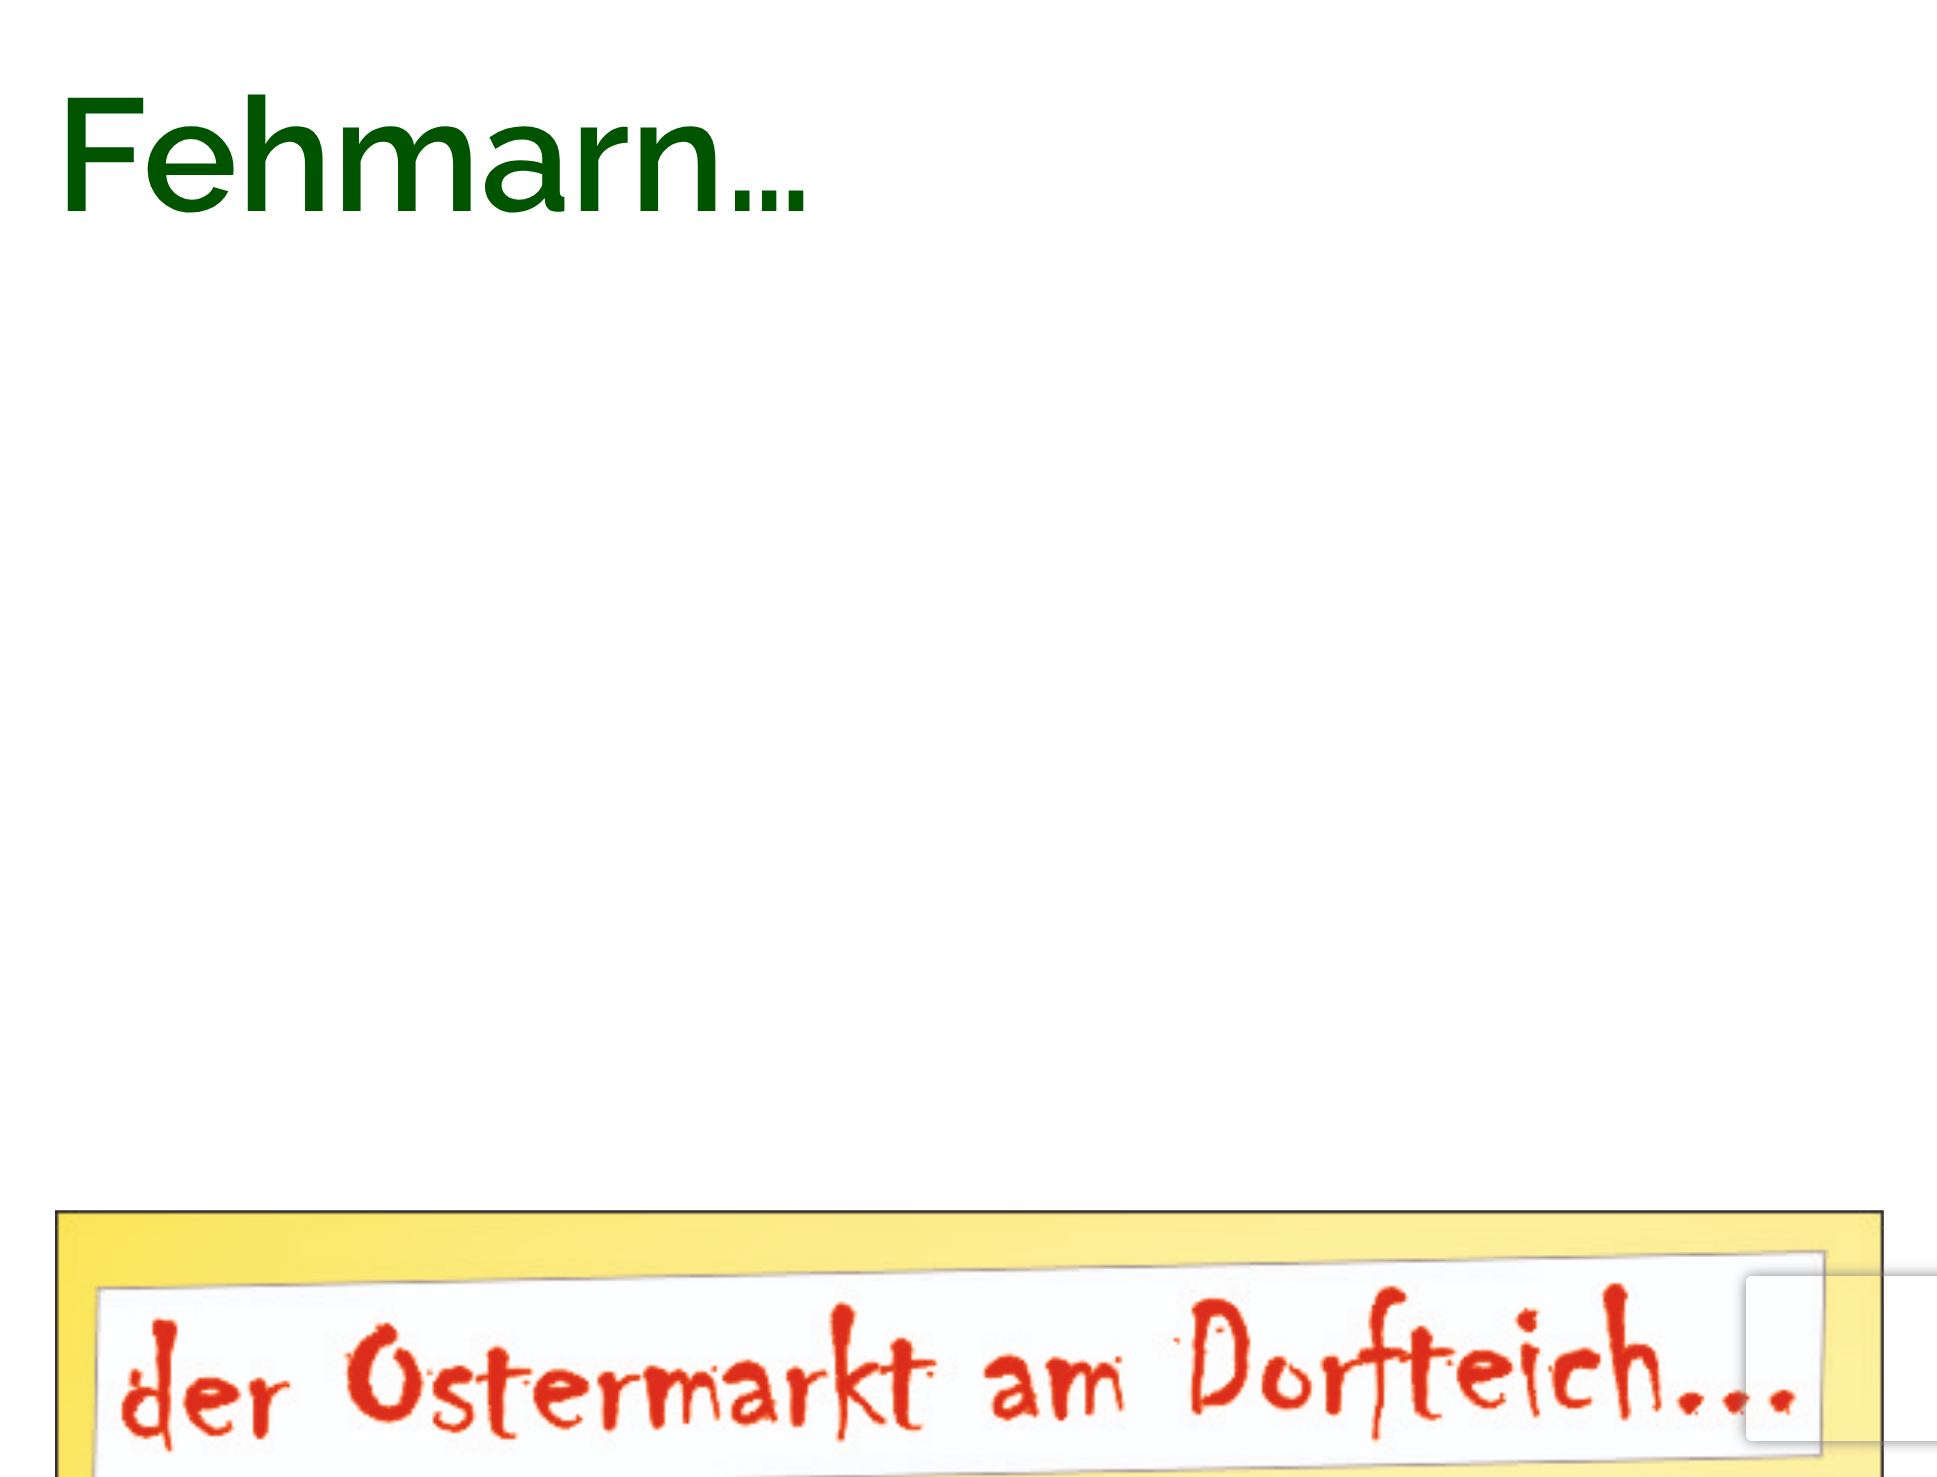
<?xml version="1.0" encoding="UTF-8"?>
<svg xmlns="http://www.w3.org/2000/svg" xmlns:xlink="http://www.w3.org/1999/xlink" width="1937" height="1477">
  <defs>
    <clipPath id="clip1"><path d="M 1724 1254 h 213 v 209 h -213 z m 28 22 h 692 c 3.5 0 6 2.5 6 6 v 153 c 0 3.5 -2.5 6 -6 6 h -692 c -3.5 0 -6 -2.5 -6 -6 v -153 c 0 -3.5 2.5 -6 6 -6 z" clip-rule="evenodd" /></clipPath>
  </defs>
  <rect width="100%" height="100%" fill="#ffffff" />
  <image x="55" y="1210" width="1829" height="267" xlink:href="image1.png" />
  <g clip-path="url(#clip1)">
    <rect x="1746" y="1276" width="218" height="165" rx="6" fill="#808080" filter="blur(7px)" />
  </g>
  <text x="55" y="211" style="font-family: Raleway; font-size: 159.5px; font-weight: 600; fill: #005400">Fehmarn…</text>
</svg>
